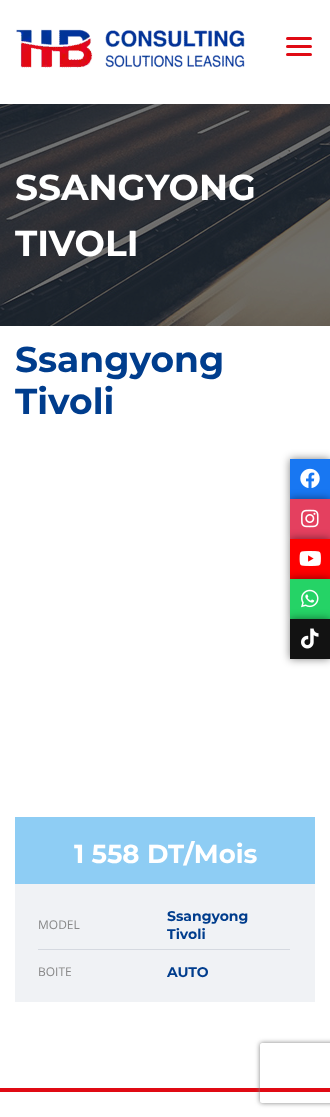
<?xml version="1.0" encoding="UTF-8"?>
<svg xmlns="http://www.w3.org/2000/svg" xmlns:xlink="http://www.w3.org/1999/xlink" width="330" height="1117">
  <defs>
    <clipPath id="clip1"><path d="M 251 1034 h 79 v 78 h -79 z m 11 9 h 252 c 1 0 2 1 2 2 v 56 c 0 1 -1 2 -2 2 h -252 c -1 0 -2 -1 -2 -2 v -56 c 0 -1 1 -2 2 -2 z" clip-rule="evenodd" /></clipPath>
  </defs>
  <rect width="100%" height="100%" fill="#ffffff" />
  <image x="16" y="29" width="229" height="39" xlink:href="image1.png" />
  <rect x="286" y="37" width="26" height="3" rx="1.5" fill="#e00a14" />
  <rect x="286" y="45" width="26" height="3" rx="1.5" fill="#e00a14" />
  <rect x="286" y="53" width="26" height="3" rx="1.5" fill="#e00a14" />
  <image x="0" y="104" width="330" height="222" xlink:href="image2.png" />
  <rect x="15" y="817" width="300" height="67" fill="#8ecdf4" />
  <rect x="15" y="884" width="300" height="118" fill="#f0f2f5" />
  <rect x="38" y="949" width="252" height="1" fill="#d5d9e0" />
  <rect x="290" y="459" width="40" height="40" fill="#000000" fill-opacity="0.5" filter="blur(4px)" />
  <rect x="290" y="459" width="40" height="40" fill="#1877f2" />
  <image x="300" y="468" width="20" height="20" xlink:href="image3.png" />
  <rect x="290" y="499" width="40" height="40" fill="#000000" fill-opacity="0.5" filter="blur(4px)" />
  <rect x="290" y="499" width="40" height="40" fill="#e4405f" />
  <image x="301" y="509" width="18" height="19" xlink:href="image4.png" />
  <rect x="290" y="539" width="40" height="40" fill="#000000" fill-opacity="0.5" filter="blur(4px)" />
  <rect x="290" y="539" width="40" height="40" fill="#ff0000" />
  <image x="299" y="551" width="22" height="15" xlink:href="image5.png" />
  <rect x="290" y="579" width="40" height="40" fill="#000000" fill-opacity="0.5" filter="blur(4px)" />
  <rect x="290" y="579" width="40" height="40" fill="#25d366" />
  <image x="301" y="589" width="18" height="19" xlink:href="image6.png" />
  <rect x="290" y="619" width="40" height="40" fill="#000000" fill-opacity="0.5" filter="blur(4px)" />
  <rect x="290" y="619" width="40" height="40" fill="#121212" />
  <image x="301" y="628" width="18" height="21" xlink:href="image7.png" />
  <rect y="1088" width="330" height="4" fill="#e00a14" />
  <g clip-path="url(#clip1)">
    <rect x="260" y="1043" width="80" height="60" rx="2" fill="#808080" filter="blur(2.5px)" />
  </g>
  <text x="15" y="200" style="font-family: Montserrat; font-size: 36px; font-weight: bold; fill: #ffffff">SSANGYONG</text>
  <text x="15" y="256" style="font-family: Montserrat; font-size: 36px; font-weight: bold; fill: #ffffff">TIVOLI</text>
  <text x="15" y="372" style="font-family: Montserrat; font-size: 36px; font-weight: bold; fill: #003d8d">Ssangyong</text>
  <text x="15" y="414" style="font-family: Montserrat; font-size: 36px; font-weight: bold; fill: #003d8d">Tivoli</text>
  <text x="74" y="863" style="font-family: Montserrat; font-size: 26px; font-weight: bold; fill: #ffffff">1 558 DT/Mois</text>
  <text x="38" y="929" style="font-family: Open Sans; font-size: 12px; fill: #888888">MODEL</text>
  <text x="167" y="921" style="font-family: Montserrat; font-size: 14px; font-weight: bold; fill: #003d8d">Ssangyong</text>
  <text x="167" y="939" style="font-family: Montserrat; font-size: 14px; font-weight: bold; fill: #003d8d">Tivoli</text>
  <text x="38" y="976" style="font-family: Open Sans; font-size: 12px; fill: #888888">BOITE</text>
  <text x="167" y="977" style="font-family: Montserrat; font-size: 14px; font-weight: bold; fill: #003d8d">AUTO</text>
</svg>
